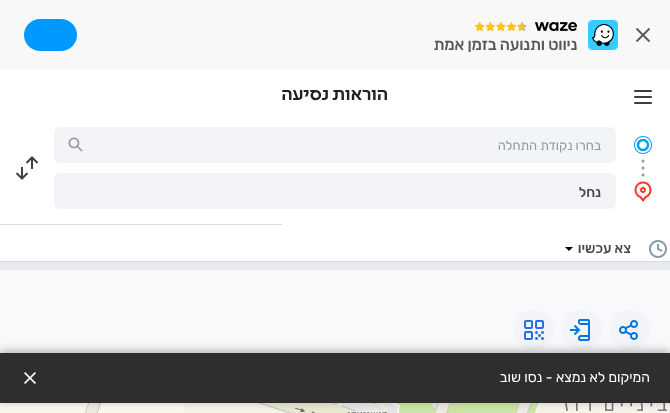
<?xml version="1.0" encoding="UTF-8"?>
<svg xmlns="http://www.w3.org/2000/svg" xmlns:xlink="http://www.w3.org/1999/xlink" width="670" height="413">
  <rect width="100%" height="100%" fill="#ffffff" />
  <rect width="670" height="70" fill="#f8f8f8" />
  <image x="635" y="27" width="16" height="16" xlink:href="image1.png" />
  <rect x="24" y="19" width="53" height="32" rx="16" fill="#0099ff" />
  <rect x="587" y="19" width="32" height="32" rx="6" fill="#33ccff" />
  <image x="592" y="24" width="22" height="22" xlink:href="image2.png" />
  <rect x="587.5" y="19.5" width="31" height="31" rx="5.5" fill="none" stroke="#ffffff" />
  <image x="535" y="22" width="42" height="9" xlink:href="image3.png" />
  <image x="475" y="22" width="52" height="9" xlink:href="image4.png" />
  <image x="634" y="90" width="18" height="14" xlink:href="image5.png" />
  <circle cx="643" cy="161" r="1.5" fill="#869ca7" />
  <circle cx="643" cy="168" r="1.5" fill="#869ca7" />
  <circle cx="643" cy="175" r="1.5" fill="#869ca7" />
  <image x="634" y="136" width="18" height="18" xlink:href="image6.png" />
  <rect x="54" y="127" width="562" height="36" rx="6" fill="#f2f4f7" />
  <image x="68" y="137" width="15" height="15" xlink:href="image7.png" />
  <image x="15" y="156" width="24" height="24" xlink:href="image8.png" />
  <image x="634" y="181" width="18" height="21" xlink:href="image9.png" />
  <rect x="54" y="173" width="562" height="36" rx="6" fill="#f2f4f7" />
  <rect y="224" width="282" height="1" fill="#d3dae0" />
  <image x="649" y="240" width="18" height="18" xlink:href="image10.png" />
  <path d="M 565 247 h 8 l -4 4 z" fill="#000000" />
  <rect y="261" width="670" height="1" fill="#d5d7db" />
  <rect y="270" width="670" height="83" fill="#f8f9fa" />
  <rect y="262" width="670" height="8" fill="#e8eaed" />
  <circle cx="630" cy="330" r="20" fill="#f2f4f7" />
  <image x="619" y="320" width="19" height="20" xlink:href="image11.png" />
  <circle cx="582" cy="330" r="20" fill="#f2f4f7" />
  <image x="570" y="319" width="20" height="22" xlink:href="image12.png" />
  <circle cx="534" cy="330" r="20" fill="#f2f4f7" />
  <image x="524" y="320" width="20" height="20" xlink:href="image13.png" />
  <image x="511" y="403" width="159" height="10" xlink:href="image14.png" />
  <image x="255" y="403" width="256" height="10" xlink:href="image15.png" />
  <image x="0" y="403" width="255" height="10" xlink:href="image16.png" />
  <rect y="351" width="670" height="50" fill="#000000" fill-opacity="0.3" filter="blur(5px)" />
  <rect y="353" width="670" height="50" fill="#2e2e2e" />
  <image x="24" y="372" width="12" height="12" xlink:href="image17.png" />
  <text x="577" y="50" style="font-family: Rubik; font-size: 16px; font-weight: 500; letter-spacing: -0.2px; direction: rtl; fill: #55595e">ניווט ותנועה בזמן אמת</text>
  <text x="388" y="100" style="font-family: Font; font-size: 18px; font-weight: 500; direction: rtl; fill: #202124">הוראות נסיעה</text>
  <text x="601" y="150" style="font-family: Rubik; font-size: 13px; direction: rtl; fill: #8b98a5">בחרו נקודת התחלה</text>
  <text x="601" y="197" style="font-family: Rubik; font-size: 14px; font-weight: 500; direction: rtl; fill: #484848">נחל</text>
  <text x="631" y="253" style="font-family: Rubik; font-size: 14px; font-weight: 500; direction: rtl; fill: #484848">צא עכשיו</text>
  <text x="650" y="382" style="font-family: Rubik; font-size: 14px; direction: rtl; fill: #ffffff">המיקום לא נמצא - נסו שוב</text>
</svg>
